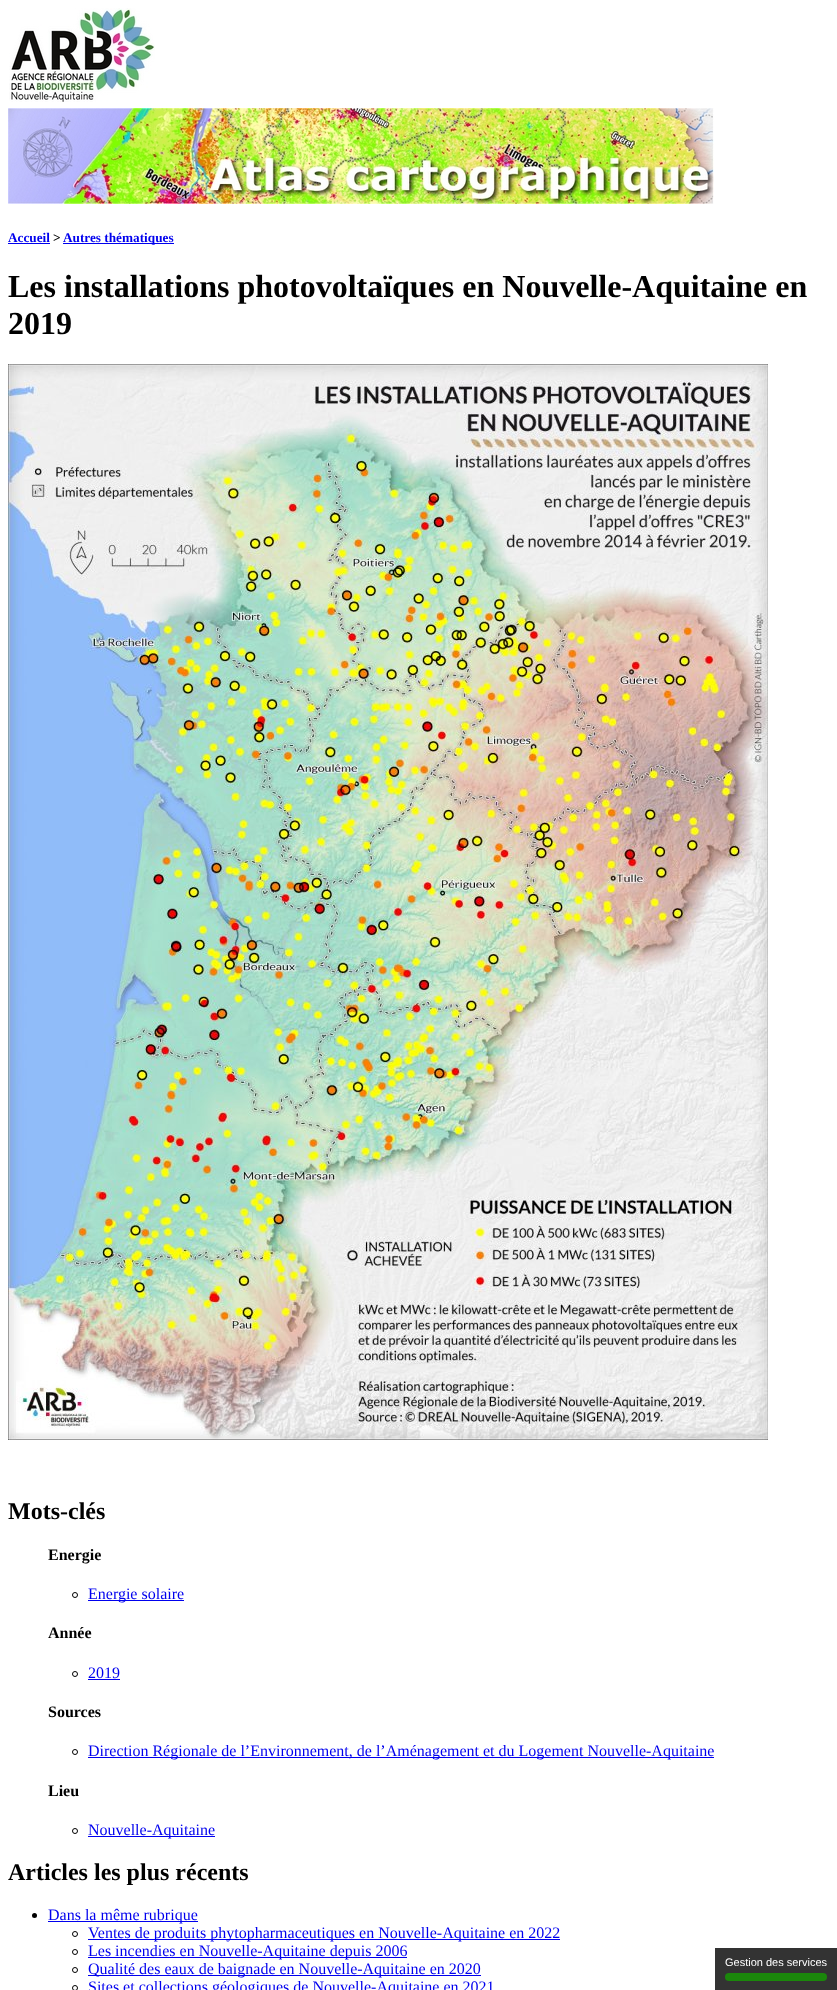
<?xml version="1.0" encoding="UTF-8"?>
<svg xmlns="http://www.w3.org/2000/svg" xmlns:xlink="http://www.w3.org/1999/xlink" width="837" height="1990">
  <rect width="100%" height="100%" fill="#ffffff" />
  <image x="9" y="8" width="146" height="94" xlink:href="image1.png" />
  <image x="8" y="108" width="706" height="96" xlink:href="image2.png" />
  <rect x="8" y="243" width="42" height="1" fill="#0000ee" />
  <rect x="63" y="243" width="111" height="1" fill="#0000ee" />
  <image x="8" y="364" width="760" height="1076" xlink:href="image3.png" />
  <circle cx="75" cy="1595" r="2.5" fill="none" stroke="#000000" />
  <rect x="88" y="1600" width="96" height="1" fill="#0000ee" />
  <circle cx="75" cy="1674" r="2.5" fill="none" stroke="#000000" />
  <rect x="88" y="1679" width="32" height="1" fill="#0000ee" />
  <circle cx="75" cy="1752" r="2.5" fill="none" stroke="#000000" />
  <rect x="88" y="1757" width="626" height="1" fill="#0000ee" />
  <circle cx="75" cy="1831" r="2.5" fill="none" stroke="#000000" />
  <rect x="88" y="1836" width="127" height="1" fill="#0000ee" />
  <circle cx="34.5" cy="1915.5" r="2.5" fill="#000000" />
  <rect x="48" y="1921" width="150" height="1" fill="#0000ee" />
  <circle cx="75" cy="1934" r="2.5" fill="none" stroke="#000000" />
  <rect x="88" y="1939" width="472" height="1" fill="#0000ee" />
  <circle cx="75" cy="1952" r="2.5" fill="none" stroke="#000000" />
  <rect x="88" y="1957" width="319" height="1" fill="#0000ee" />
  <circle cx="75" cy="1970" r="2.5" fill="none" stroke="#000000" />
  <rect x="88" y="1975" width="393" height="1" fill="#0000ee" />
  <circle cx="75" cy="1988" r="2.5" fill="none" stroke="#000000" />
  <rect x="715" y="1948" width="122" height="42" fill="#333333" />
  <rect x="725" y="1973" width="102" height="8" rx="4" fill="#1b870b" />
  <text x="8" y="242" style="font-family: Liberation Serif; font-size: 13.25px; font-weight: bold; fill: #0000ee">Accueil</text>
  <text x="53" y="242" style="font-family: Liberation Serif; font-size: 13.25px; font-weight: bold; fill: #000000">&gt;</text>
  <text x="63" y="242" style="font-family: Liberation Serif; font-size: 13.25px; font-weight: bold; fill: #0000ee">Autres thématiques</text>
  <text x="8" y="297" style="font-family: Liberation Serif; font-size: 32px; font-weight: bold; fill: #000000">Les installations photovoltaïques en Nouvelle-Aquitaine en</text>
  <text x="8" y="334" style="font-family: Liberation Serif; font-size: 32px; font-weight: bold; fill: #000000">2019</text>
  <text x="8" y="1519" style="font-family: Liberation Serif; font-size: 24px; font-weight: bold; fill: #000000">Mots-clés</text>
  <text x="48" y="1560" style="font-family: Liberation Serif; font-size: 16px; font-weight: bold; fill: #000000">Energie</text>
  <text x="88" y="1599" style="font-family: Liberation Serif; font-size: 16px; fill: #0000ee">Energie solaire</text>
  <text x="48" y="1638" style="font-family: Liberation Serif; font-size: 16px; font-weight: bold; fill: #000000">Année</text>
  <text x="88" y="1678" style="font-family: Liberation Serif; font-size: 16px; fill: #0000ee">2019</text>
  <text x="48" y="1717" style="font-family: Liberation Serif; font-size: 16px; font-weight: bold; fill: #000000">Sources</text>
  <text x="88" y="1756" style="font-family: Liberation Serif; font-size: 16px; fill: #0000ee">Direction Régionale de l’Environnement, de l’Aménagement et du Logement Nouvelle-Aquitaine</text>
  <text x="48" y="1796" style="font-family: Liberation Serif; font-size: 16px; font-weight: bold; fill: #000000">Lieu</text>
  <text x="88" y="1835" style="font-family: Liberation Serif; font-size: 16px; fill: #0000ee">Nouvelle-Aquitaine</text>
  <text x="8" y="1880" style="font-family: Liberation Serif; font-size: 24px; font-weight: bold; fill: #000000">Articles les plus récents</text>
  <text x="48" y="1920" style="font-family: Liberation Serif; font-size: 16px; fill: #0000ee">Dans la même rubrique</text>
  <text x="88" y="1938" style="font-family: Liberation Serif; font-size: 16px; fill: #0000ee">Ventes de produits phytopharmaceutiques en Nouvelle-Aquitaine en 2022</text>
  <text x="88" y="1956" style="font-family: Liberation Serif; font-size: 16px; fill: #0000ee">Les incendies en Nouvelle-Aquitaine depuis 2006</text>
  <text x="88" y="1974" style="font-family: Liberation Serif; font-size: 16px; fill: #0000ee">Qualité des eaux de baignade en Nouvelle-Aquitaine en 2020</text>
  <text x="88" y="1992" style="font-family: Liberation Serif; font-size: 16px; fill: #0000ee">Sites et collections géologiques de Nouvelle-Aquitaine en 2021</text>
  <text x="725" y="1966" style="font-family: Liberation Sans; font-size: 11px; fill: #ffffff">Gestion des services</text>
</svg>
